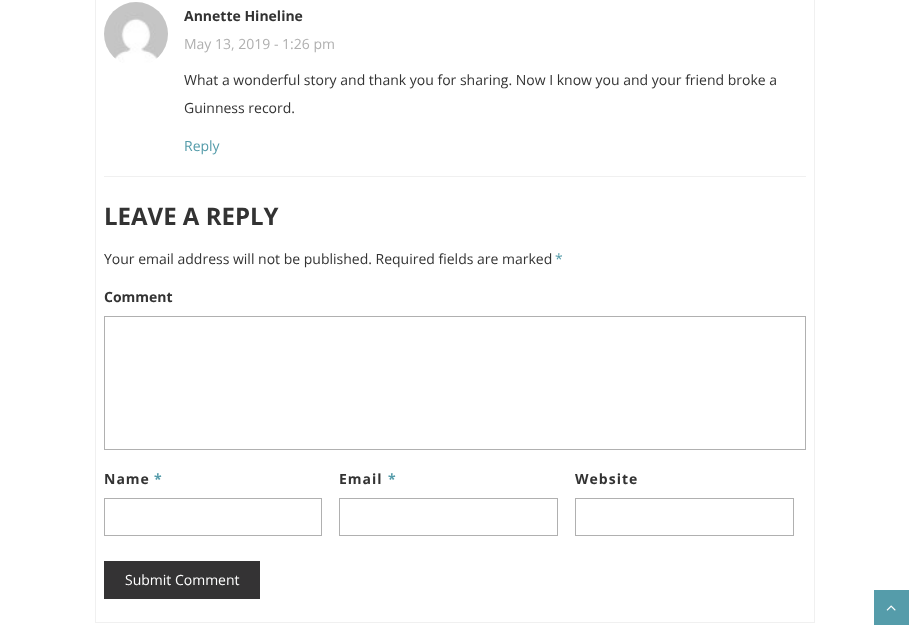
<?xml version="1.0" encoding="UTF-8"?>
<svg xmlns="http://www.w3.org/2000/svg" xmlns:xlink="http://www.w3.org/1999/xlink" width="909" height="625">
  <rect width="100%" height="100%" fill="#ffffff" />
  <rect x="95.5" y="-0.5" width="719" height="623" fill="none" stroke="#f0f0f0" />
  <rect x="104" y="176" width="702" height="1" fill="#f0f0f0" />
  <image x="104" y="2" width="64" height="61" xlink:href="image1.png" />
  <rect x="104.5" y="316.5" width="701" height="133" fill="none" stroke="#b0b0b0" />
  <rect x="104.5" y="498.5" width="217" height="37" fill="none" stroke="#b0b0b0" />
  <rect x="339.5" y="498.5" width="218" height="37" fill="none" stroke="#b0b0b0" />
  <rect x="575.5" y="498.5" width="218" height="37" fill="none" stroke="#b0b0b0" />
  <rect x="104" y="561" width="156" height="38" fill="#343334" />
  <rect x="874" y="590" width="35" height="35" fill="#559caa" />
  <image x="886" y="605" width="10" height="6" xlink:href="image2.png" />
  <text x="184" y="21" style="font-family: Open Sans; font-size: 14px; font-weight: bold; fill: #333333">Annette Hineline</text>
  <text x="184" y="49" style="font-family: Open Sans; font-size: 14px; fill: #b0b0b0">May 13, 2019 - 1:26 pm</text>
  <text x="184" y="85" style="font-family: Open Sans; font-size: 14px; fill: #333333">What a wonderful story and thank you for sharing. Now I know you and your friend broke a</text>
  <text x="184" y="113" style="font-family: Open Sans; font-size: 14px; fill: #333333">Guinness record.</text>
  <text x="184" y="151" style="font-family: Open Sans; font-size: 14px; fill: #559caa">Reply</text>
  <text x="104" y="225" style="font-family: Open Sans; font-size: 24px; font-weight: bold; fill: #333333">LEAVE A REPLY</text>
  <text x="104" y="264" style="font-family: Open Sans; font-size: 14px; fill: #333333">Your email address will not be published. Required fields are marked</text>
  <text x="555" y="264" style="font-family: Open Sans; font-size: 14px; fill: #559caa">*</text>
  <text x="104" y="302" style="font-family: Open Sans; font-size: 14px; font-weight: bold; fill: #333333">Comment</text>
  <text x="104" y="484" style="font-family: Open Sans; font-size: 14px; font-weight: bold; letter-spacing: 1px; fill: #333333">Name</text>
  <text x="154" y="484" style="font-family: Open Sans; font-size: 14px; font-weight: bold; letter-spacing: 1px; fill: #559caa">*</text>
  <text x="339" y="484" style="font-family: Open Sans; font-size: 14px; font-weight: bold; letter-spacing: 1px; fill: #333333">Email</text>
  <text x="388" y="484" style="font-family: Open Sans; font-size: 14px; font-weight: bold; letter-spacing: 1px; fill: #559caa">*</text>
  <text x="575" y="484" style="font-family: Open Sans; font-size: 14px; font-weight: bold; letter-spacing: 1px; fill: #333333">Website</text>
  <text x="125" y="585" style="font-family: Open Sans; font-size: 14px; fill: #ffffff">Submit Comment</text>
</svg>
